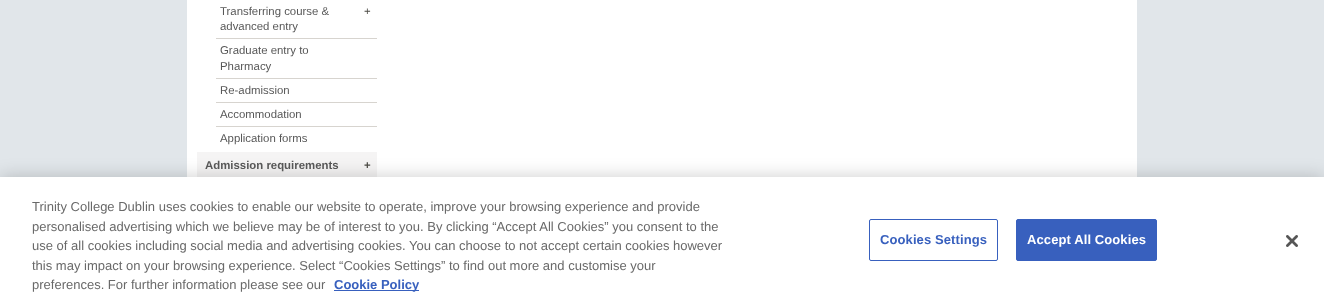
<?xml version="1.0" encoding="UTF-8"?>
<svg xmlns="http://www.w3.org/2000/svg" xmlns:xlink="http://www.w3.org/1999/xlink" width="1324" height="305">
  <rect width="100%" height="100%" fill="#e1e6ea" />
  <rect x="187" width="950" height="177" fill="#ffffff" />
  <rect x="216" y="38" width="161" height="1" fill="#d7d4cf" />
  <rect x="216" y="78" width="161" height="1" fill="#d7d4cf" />
  <rect x="216" y="102" width="161" height="1" fill="#d7d4cf" />
  <rect x="216" y="126" width="161" height="1" fill="#d7d4cf" />
  <rect x="197" y="152" width="180" height="25" fill="#f5f4f4" />
  <rect y="177" width="1324" height="128" fill="#000000" fill-opacity="0.2" filter="blur(9px)" />
  <rect y="177" width="1324" height="128" fill="#ffffff" />
  <rect x="334" y="290" width="85" height="1" fill="#3860be" />
  <rect x="869.5" y="219.5" width="128" height="41" rx="1.5" fill="none" stroke="#3860be" />
  <rect x="1016.5" y="219.5" width="140" height="41" rx="1.5" fill="#3860be" stroke="#3860be" />
  <image x="1286" y="235" width="12" height="12" xlink:href="image1.png" />
  <text x="220" y="15" style="font-family: Liberation Sans; font-size: 11.4px; fill: #575757">Transferring course &amp;</text>
  <text x="220" y="30" style="font-family: Liberation Sans; font-size: 11.4px; fill: #575757">advanced entry</text>
  <text x="364" y="15" style="font-family: Liberation Sans; font-size: 11.4px; fill: #4c4b45">+</text>
  <text x="220" y="54" style="font-family: Liberation Sans; font-size: 11.4px; fill: #575757">Graduate entry to</text>
  <text x="220" y="70" style="font-family: Liberation Sans; font-size: 11.4px; fill: #575757">Pharmacy</text>
  <text x="220" y="94" style="font-family: Liberation Sans; font-size: 11.4px; fill: #575757">Re-admission</text>
  <text x="220" y="118" style="font-family: Liberation Sans; font-size: 11.4px; fill: #575757">Accommodation</text>
  <text x="220" y="142" style="font-family: Liberation Sans; font-size: 11.4px; fill: #575757">Application forms</text>
  <text x="205" y="169" style="font-family: Liberation Sans; font-size: 11.4px; font-weight: bold; fill: #575757">Admission requirements</text>
  <text x="364" y="169" style="font-family: Liberation Sans; font-size: 11.4px; font-weight: bold; fill: #4c4b45">+</text>
  <text x="32" y="211" style="font-family: Liberation Sans; font-size: 13px; fill: #696969">Trinity College Dublin uses cookies to enable our website to operate, improve your browsing experience and provide</text>
  <text x="32" y="231" style="font-family: Liberation Sans; font-size: 13px; fill: #696969">personalised advertising which we believe may be of interest to you. By clicking “Accept All Cookies” you consent to the</text>
  <text x="32" y="250" style="font-family: Liberation Sans; font-size: 13px; fill: #696969">use of all cookies including social media and advertising cookies. You can choose to not accept certain cookies however</text>
  <text x="32" y="270" style="font-family: Liberation Sans; font-size: 13px; fill: #696969">this may impact on your browsing experience. Select “Cookies Settings” to find out more and customise your</text>
  <text x="32" y="289" style="font-family: Liberation Sans; font-size: 13px; fill: #696969">preferences. For further information please see our</text>
  <text x="334" y="289" style="font-family: Liberation Sans; font-size: 13px; font-weight: bold; fill: #3860be">Cookie Policy</text>
  <text x="880" y="244" style="font-family: Liberation Sans; font-size: 13px; font-weight: bold; letter-spacing: 0.1px; fill: #3860be">Cookies Settings</text>
  <text x="1027" y="244" style="font-family: Liberation Sans; font-size: 13px; font-weight: bold; letter-spacing: 0.1px; fill: #ffffff">Accept All Cookies</text>
</svg>
